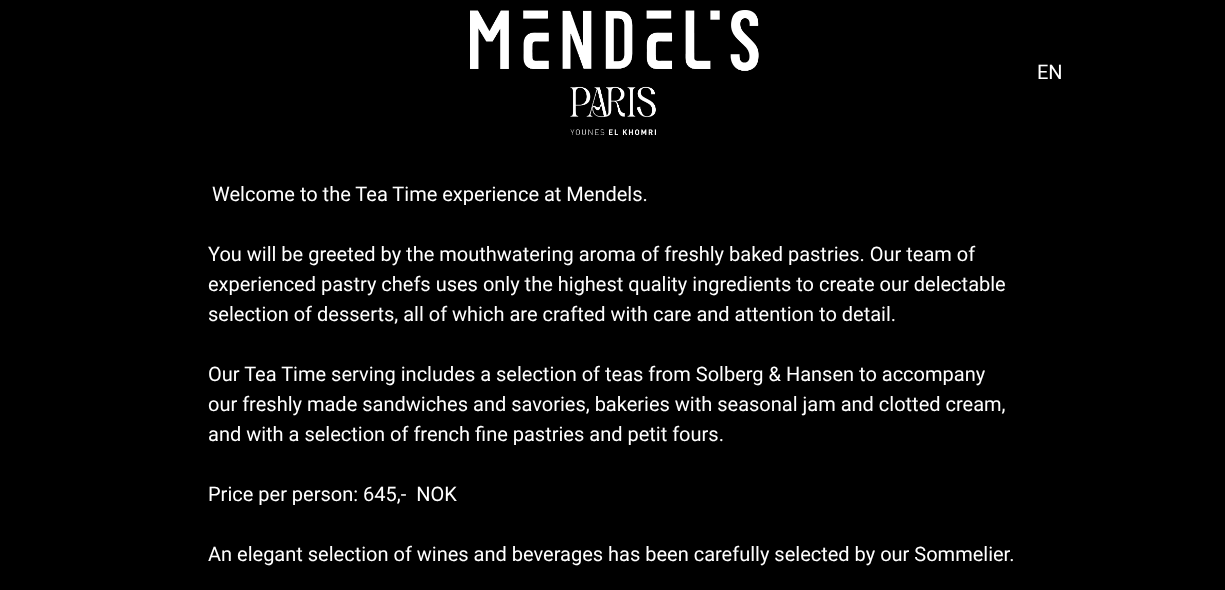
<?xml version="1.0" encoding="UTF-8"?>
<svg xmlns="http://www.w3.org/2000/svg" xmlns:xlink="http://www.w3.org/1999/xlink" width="1225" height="590">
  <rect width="100%" height="100%" fill="#000000" />
  <image x="470" y="10" width="289" height="125" xlink:href="image1.png" />
  <text x="1037" y="79" style="font-family: Roboto; font-size: 20px; fill: #ffffff">EN</text>
  <text x="212" y="201" style="font-family: Roboto; font-size: 20px; fill: #ffffff">Welcome to the Tea Time experience at Mendels.</text>
  <text x="208" y="261" style="font-family: Roboto; font-size: 20px; fill: #ffffff">You will be greeted by the mouthwatering aroma of freshly baked pastries. Our team of</text>
  <text x="208" y="291" style="font-family: Roboto; font-size: 20px; fill: #ffffff">experienced pastry chefs uses only the highest quality ingredients to create our delectable</text>
  <text x="208" y="321" style="font-family: Roboto; font-size: 20px; fill: #ffffff">selection of desserts, all of which are crafted with care and attention to detail.</text>
  <text x="208" y="381" style="font-family: Roboto; font-size: 20px; fill: #ffffff">Our Tea Time serving includes a selection of teas from Solberg &amp; Hansen to accompany</text>
  <text x="208" y="411" style="font-family: Roboto; font-size: 20px; fill: #ffffff">our freshly made sandwiches and savories, bakeries with seasonal jam and clotted cream,</text>
  <text x="208" y="441" style="font-family: Roboto; font-size: 20px; fill: #ffffff">and with a selection of french fine pastries and petit fours.</text>
  <text x="208" y="501" style="font-family: Roboto; font-size: 20px; fill: #ffffff" xml:space="preserve">Price per person: 645,-  NOK</text>
  <text x="208" y="561" style="font-family: Roboto; font-size: 20px; fill: #ffffff">An elegant selection of wines and beverages has been carefully selected by our Sommelier.</text>
</svg>
